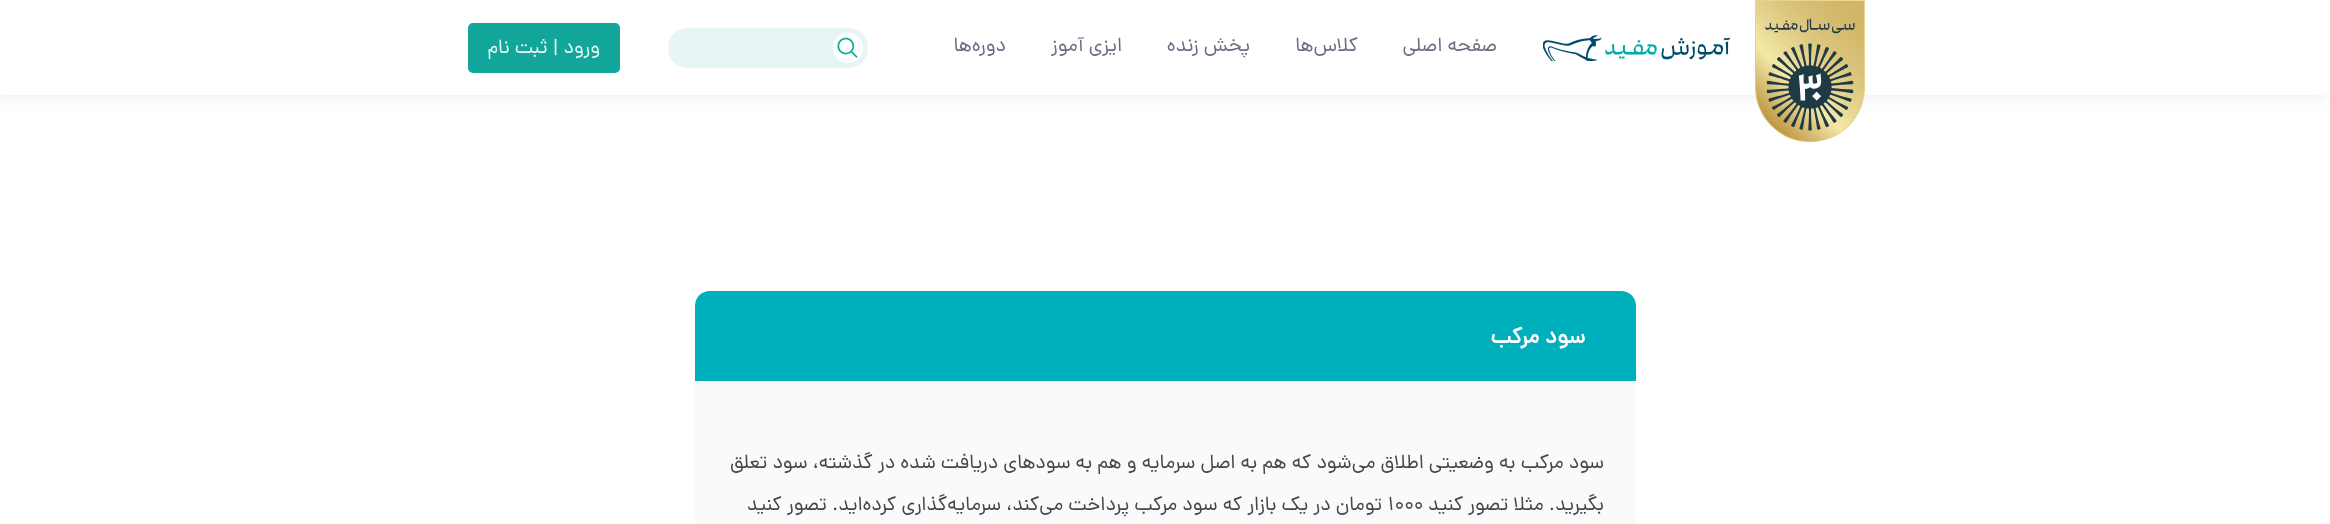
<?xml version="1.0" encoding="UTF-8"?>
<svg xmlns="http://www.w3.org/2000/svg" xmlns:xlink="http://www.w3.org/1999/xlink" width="2330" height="524">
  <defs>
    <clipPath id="clip1"><rect x="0" y="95" width="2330" height="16" /></clipPath>
  </defs>
  <rect width="100%" height="100%" fill="#ffffff" />
  <g clip-path="url(#clip1)">
    <rect x="-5" y="5" width="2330" height="95" fill="#e9f0f0" fill-opacity="0.7" filter="blur(6px)" />
  </g>
  <image x="1755" y="0" width="110" height="143" xlink:href="image1.png" />
  <image x="1543" y="35" width="187" height="26" xlink:href="image2.png" />
  <rect x="668" y="28" width="200" height="40" rx="20" fill="#e7f6f5" />
  <circle cx="848" cy="48" r="15" fill="#ffffff" />
  <image x="837" y="37" width="21" height="21" xlink:href="image3.png" />
  <rect x="468" y="23" width="152" height="50" rx="5" fill="#11a699" />
  <path d="M 710 291 h 911 c 8.5 0 15 6.5 15 15 v 75 h -941 v -75 c 0 -8.5 6.5 -15 15 -15 z" fill="#00afbc" />
  <rect x="695" y="381" width="941" height="143" fill="#fafafb" />
  <text x="1497" y="51" style="font-family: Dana; font-size: 20px; direction: rtl; fill: #666e82">صفحه اصلی</text>
  <text x="1358" y="51" style="font-family: Dana; font-size: 20px; direction: rtl; fill: #666e82">کلاس‌ها</text>
  <text x="1250" y="51" style="font-family: Dana; font-size: 20px; direction: rtl; fill: #666e82">پخش زنده</text>
  <text x="1122" y="51" style="font-family: Dana; font-size: 20px; direction: rtl; fill: #666e82">ایزی آموز</text>
  <text x="1006" y="51" style="font-family: Dana; font-size: 20px; direction: rtl; fill: #666e82">دوره‌ها</text>
  <text x="600" y="53" style="font-family: Dana; font-size: 20px; direction: rtl; fill: #e7f6f5">ورود | ثبت نام</text>
  <text x="1586" y="343" style="font-family: Dana; font-size: 22.5px; font-weight: 600; direction: rtl; fill: #ffffff">سود مرکب</text>
  <text x="1604" y="468" style="font-family: Dana; font-size: 20px; direction: rtl; fill: #42474d">سود مرکب به وضعیتی اطلاق می‌شود که هم به اصل سرمایه و هم به سودهای دریافت شده در گذشته، سود تعلق</text>
  <text x="1604" y="510" style="font-family: Dana; font-size: 20px; direction: rtl; fill: #42474d">بگیرید. مثلا تصور کنید</text>
  <text x="1388" y="510" style="font-family: Dana; font-size: 20px; fill: #42474d">۱۰۰۰</text>
  <text x="1382" y="510" style="font-family: Dana; font-size: 20px; direction: rtl; fill: #42474d">تومان در یک بازار که سود مرکب پرداخت می‌کند، سرمایه‌گذاری کرده‌اید. تصور کنید</text>
</svg>
